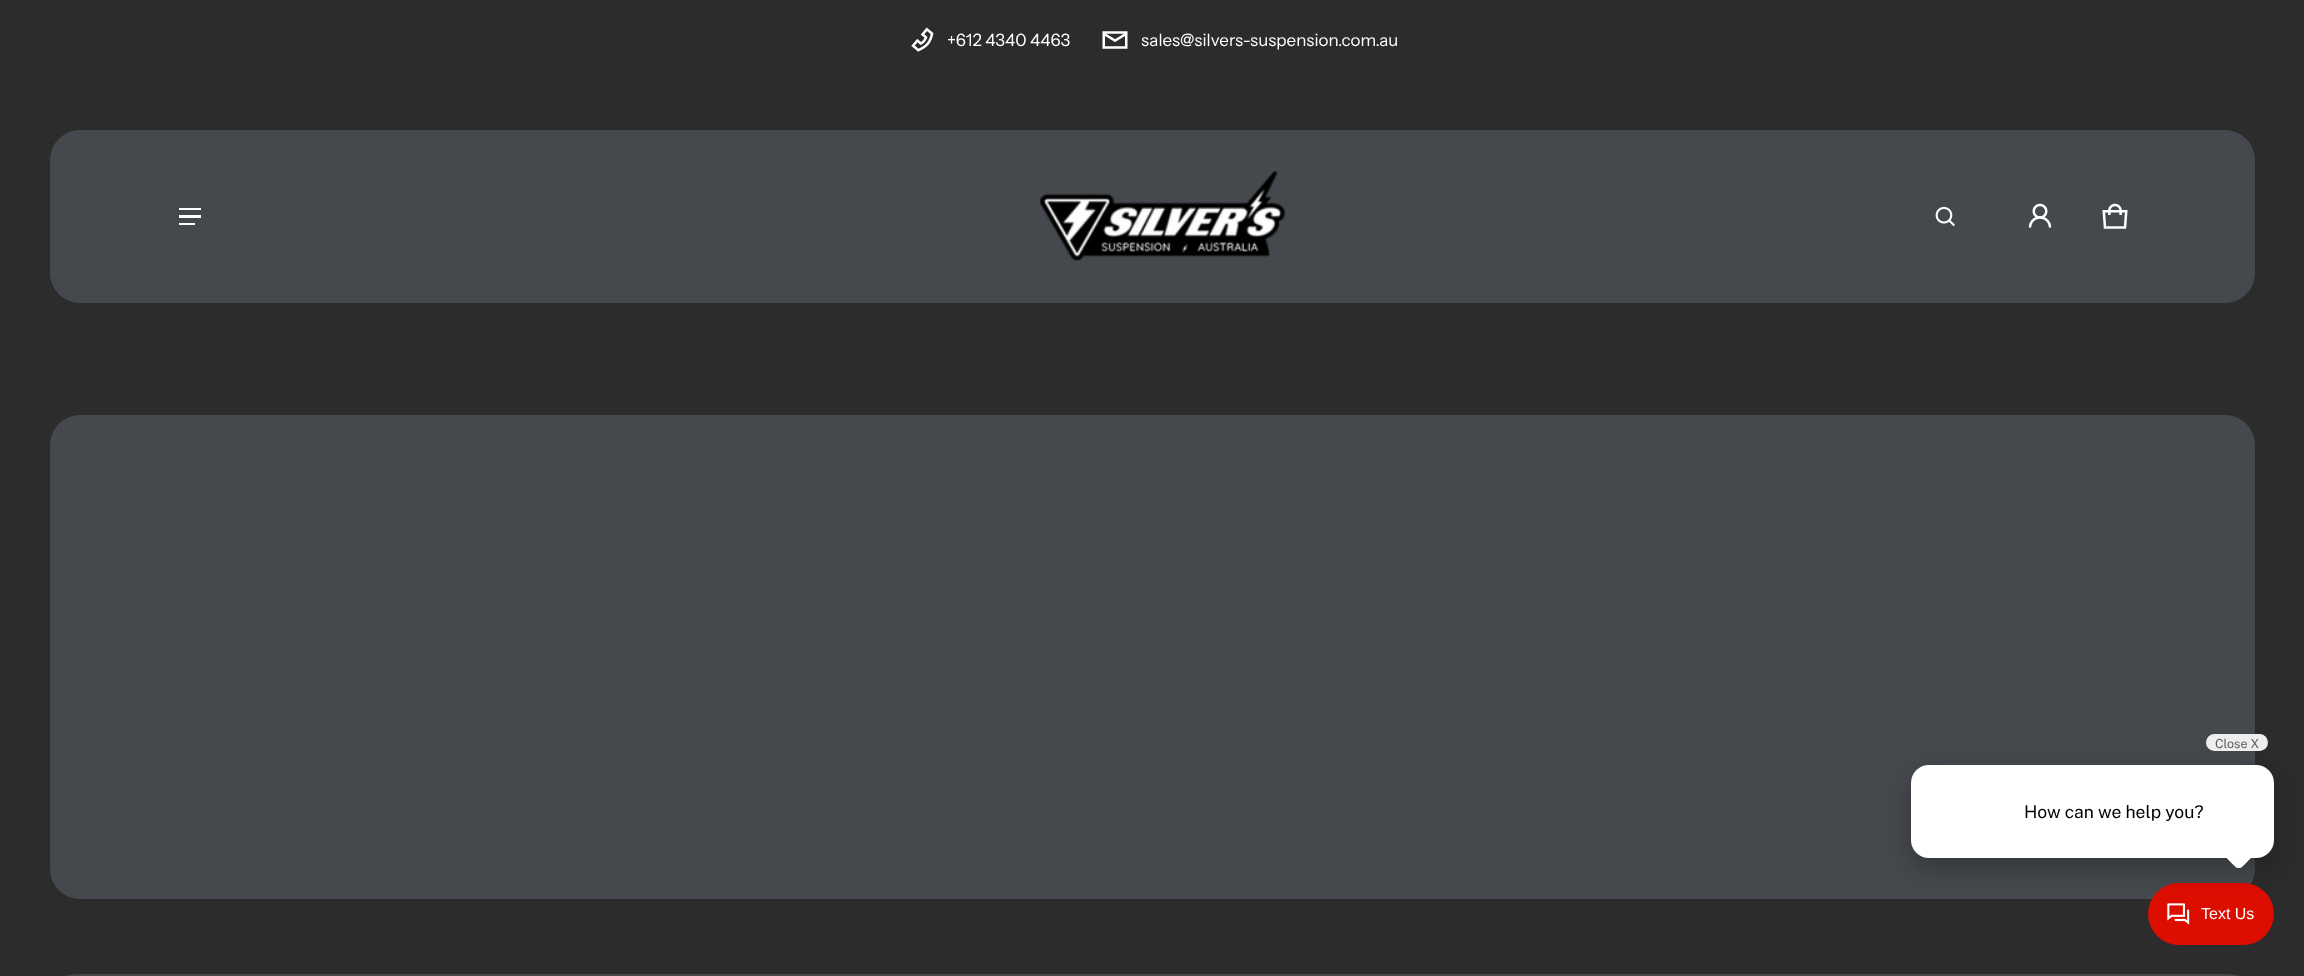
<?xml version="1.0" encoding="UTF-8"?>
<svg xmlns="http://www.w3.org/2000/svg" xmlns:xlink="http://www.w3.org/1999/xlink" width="2304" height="976">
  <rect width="100%" height="100%" fill="#2c2c2c" />
  <image x="911" y="27" width="23" height="25" xlink:href="image1.png" />
  <image x="1102" y="31" width="26" height="18" xlink:href="image2.png" />
  <rect x="50" y="130" width="2205" height="173" rx="30" fill="#45484c" />
  <rect x="179" y="208" width="22" height="2" fill="#ffffff" />
  <rect x="179" y="215" width="22" height="3" fill="#ffffff" />
  <rect x="179" y="223" width="16" height="2" fill="#ffffff" />
  <image x="1040" y="171" width="246" height="90" xlink:href="image3.png" />
  <image x="1935" y="206" width="20" height="21" xlink:href="image4.png" />
  <image x="2028" y="203" width="24" height="25" xlink:href="image5.png" />
  <image x="2102" y="203" width="26" height="26" xlink:href="image6.png" />
  <rect x="50" y="415" width="2205" height="484" rx="30" fill="#45484c" />
  <rect x="2148" y="883" width="126" height="62" rx="31" fill="#db0e00" />
  <image x="2167" y="903" width="23" height="22" xlink:href="image7.png" />
  <rect x="1911" y="775" width="363" height="93" rx="18" fill="#000000" fill-opacity="0.24" filter="blur(12.5px)" />
  <rect x="1911" y="765" width="363" height="93" rx="18" fill="#ffffff" />
  <rect x="2206" y="734" width="62" height="17" rx="8.5" fill="#eeeeee" />
  <path d="M 2242.5 838.5 l 10.5 10.5 c 2 2 2 5 0 7 l -10.5 10.5 c -2 2 -5.5 2 -7.5 0 l -10.5 -10.5 c -2 -2 -2 -5 0 -7 l 10.5 -10.5 c 2 -2 5.5 -2 7.5 0 z" fill="#ffffff" />
  <rect x="50" y="974" width="2205" height="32" rx="30" fill="#45484c" />
  <text x="947" y="46" style="font-family: Instrument Sans; font-size: 17px; fill: #ffffff">+612 4340 4463</text>
  <text x="1141" y="46" style="font-family: Instrument Sans; font-size: 17px; fill: #ffffff">sales@silvers-suspension.com.au</text>
  <text x="2215" y="748" style="font-family: Public Sans; font-size: 12.5px; font-weight: 100; fill: #5d5d5d">Close X</text>
  <text x="2024" y="818" style="font-family: Public Sans; font-size: 17.5px; font-weight: 100; fill: #000000">How can we help you?</text>
  <text x="2201" y="919" style="font-family: Liberation Sans; font-size: 16px; fill: #ffffff">Text Us</text>
</svg>
